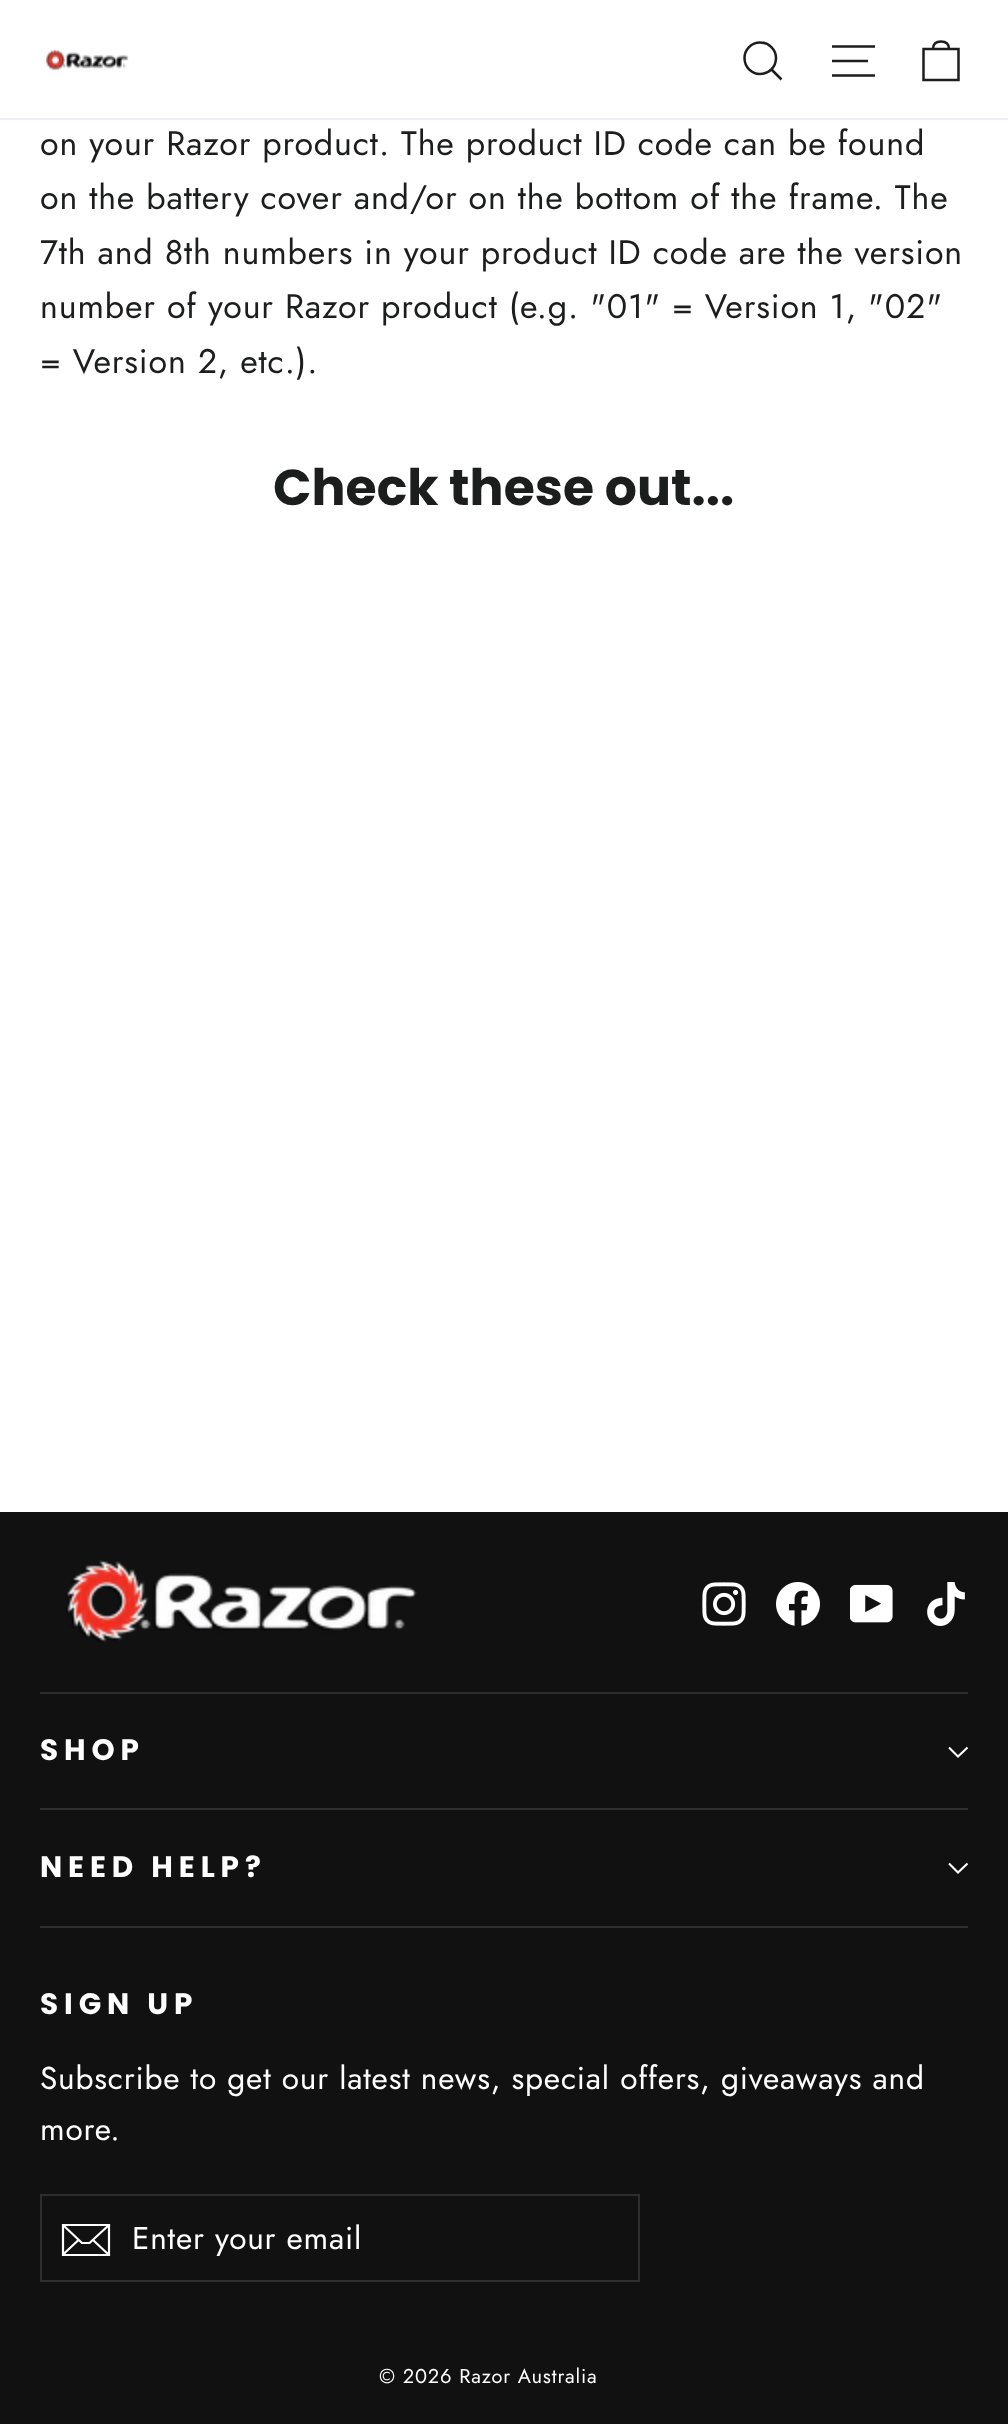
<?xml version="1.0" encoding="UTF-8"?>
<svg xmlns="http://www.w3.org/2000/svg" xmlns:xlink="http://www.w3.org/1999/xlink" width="1008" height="2424">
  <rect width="100%" height="100%" fill="#ffffff" />
  <rect y="118" width="1008" height="2" fill="#eef0f9" />
  <image x="46" y="49" width="83" height="22" xlink:href="image1.png" />
  <path d="M 776 58 c 0 9 -7 16 -16 16 c -8.5 0 -15.5 -7 -15.5 -16 c 0 -8.5 7 -15.5 15.5 -15.5 c 9 0 16 7 16 15.5 z m 5.5 21.5 l -10 -10" fill="none" stroke="#1c1d1d" stroke-width="2.5" />
  <path d="M 832 46.5 h 43 m -43 14.5 h 36 m -36 14.5 h 43" fill="none" stroke="#1c1d1d" stroke-width="2.5" />
  <path d="M 923.5 49 h 35 v 31 h -35 z m 9.5 0 c 0 -6 3.5 -7.5 8 -7.5 c 4.5 0 8 1.5 8 7.5" fill="none" stroke="#1c1d1d" stroke-width="2.5" />
  <rect y="1512" width="1008" height="912" fill="#111111" />
  <image x="66" y="1560" width="351" height="83" xlink:href="image2.png" />
  <image x="702" y="1582" width="44" height="44" xlink:href="image3.png" />
  <image x="776" y="1582" width="44" height="44" xlink:href="image4.png" />
  <image x="850" y="1584" width="43" height="39" xlink:href="image5.png" />
  <image x="927" y="1582" width="38" height="44" xlink:href="image6.png" />
  <rect x="40" y="1692" width="928" height="2" fill="#2e2e2e" />
  <path d="M 949 1747.5 l 9 9 l 9.5 -9" fill="none" stroke="#ffffff" stroke-width="2.1" />
  <rect x="40" y="1808" width="928" height="2" fill="#2e2e2e" />
  <path d="M 949 1863.5 l 9 9 l 9.5 -9" fill="none" stroke="#ffffff" stroke-width="2.1" />
  <rect x="40" y="1926" width="928" height="2" fill="#2e2e2e" />
  <rect x="41" y="2195" width="598" height="86" fill="none" stroke="#2e2e2e" stroke-width="2" />
  <path d="M 109 2255 h -46 v -30 h 46 z m -46 -30 l 19 18 h 7.5 l 19.5 -18 m -30.5 15 l -15.5 14.5 m 46 0.5 l -16 -15" fill="none" stroke="#ffffff" stroke-width="2.2" />
  <text x="40" y="155" style="font-family: Jost; font-size: 34px; letter-spacing: 0.85px; fill: #1c1d1d">on your Razor product. The product ID code can be found</text>
  <text x="40" y="209" style="font-family: Jost; font-size: 34px; letter-spacing: 0.85px; fill: #1c1d1d">on the battery cover and/or on the bottom of the frame. The</text>
  <text x="40" y="264" style="font-family: Jost; font-size: 34px; letter-spacing: 0.85px; fill: #1c1d1d">7th and 8th numbers in your product ID code are the version</text>
  <text x="40" y="318" style="font-family: Jost; font-size: 34px; letter-spacing: 0.85px; fill: #1c1d1d">number of your Razor product (e.g. "01" = Version 1, "02"</text>
  <text x="40" y="373" style="font-family: Jost; font-size: 34px; letter-spacing: 0.85px; fill: #1c1d1d">= Version 2, etc.).</text>
  <text x="273" y="505" style="font-family: Poppins; font-size: 50.5px; font-weight: bold; fill: #1c1d1d">Check these out...</text>
  <text x="40" y="1760" style="font-family: Poppins; font-size: 29.5px; font-weight: bold; letter-spacing: 5.9px; fill: #ffffff">SHOP</text>
  <text x="40" y="1877" style="font-family: Poppins; font-size: 29.5px; font-weight: bold; letter-spacing: 5.9px; fill: #ffffff">NEED HELP?</text>
  <text x="40" y="2014" style="font-family: Poppins; font-size: 29.5px; font-weight: bold; letter-spacing: 5.9px; fill: #ffffff">SIGN UP</text>
  <text x="40" y="2089" style="font-family: Jost; font-size: 31.6px; letter-spacing: 0.8px; fill: #ffffff">Subscribe to get our latest news, special offers, giveaways and</text>
  <text x="40" y="2140" style="font-family: Jost; font-size: 31.6px; letter-spacing: 0.8px; fill: #ffffff">more.</text>
  <text x="132" y="2249" style="font-family: Jost; font-size: 31.6px; letter-spacing: 0.8px; fill: #ffffff">Enter your email</text>
  <text x="379" y="2383" style="font-family: Jost; font-size: 20px; letter-spacing: 0.85px; fill: #ffffff">© 2026 Razor Australia</text>
</svg>
